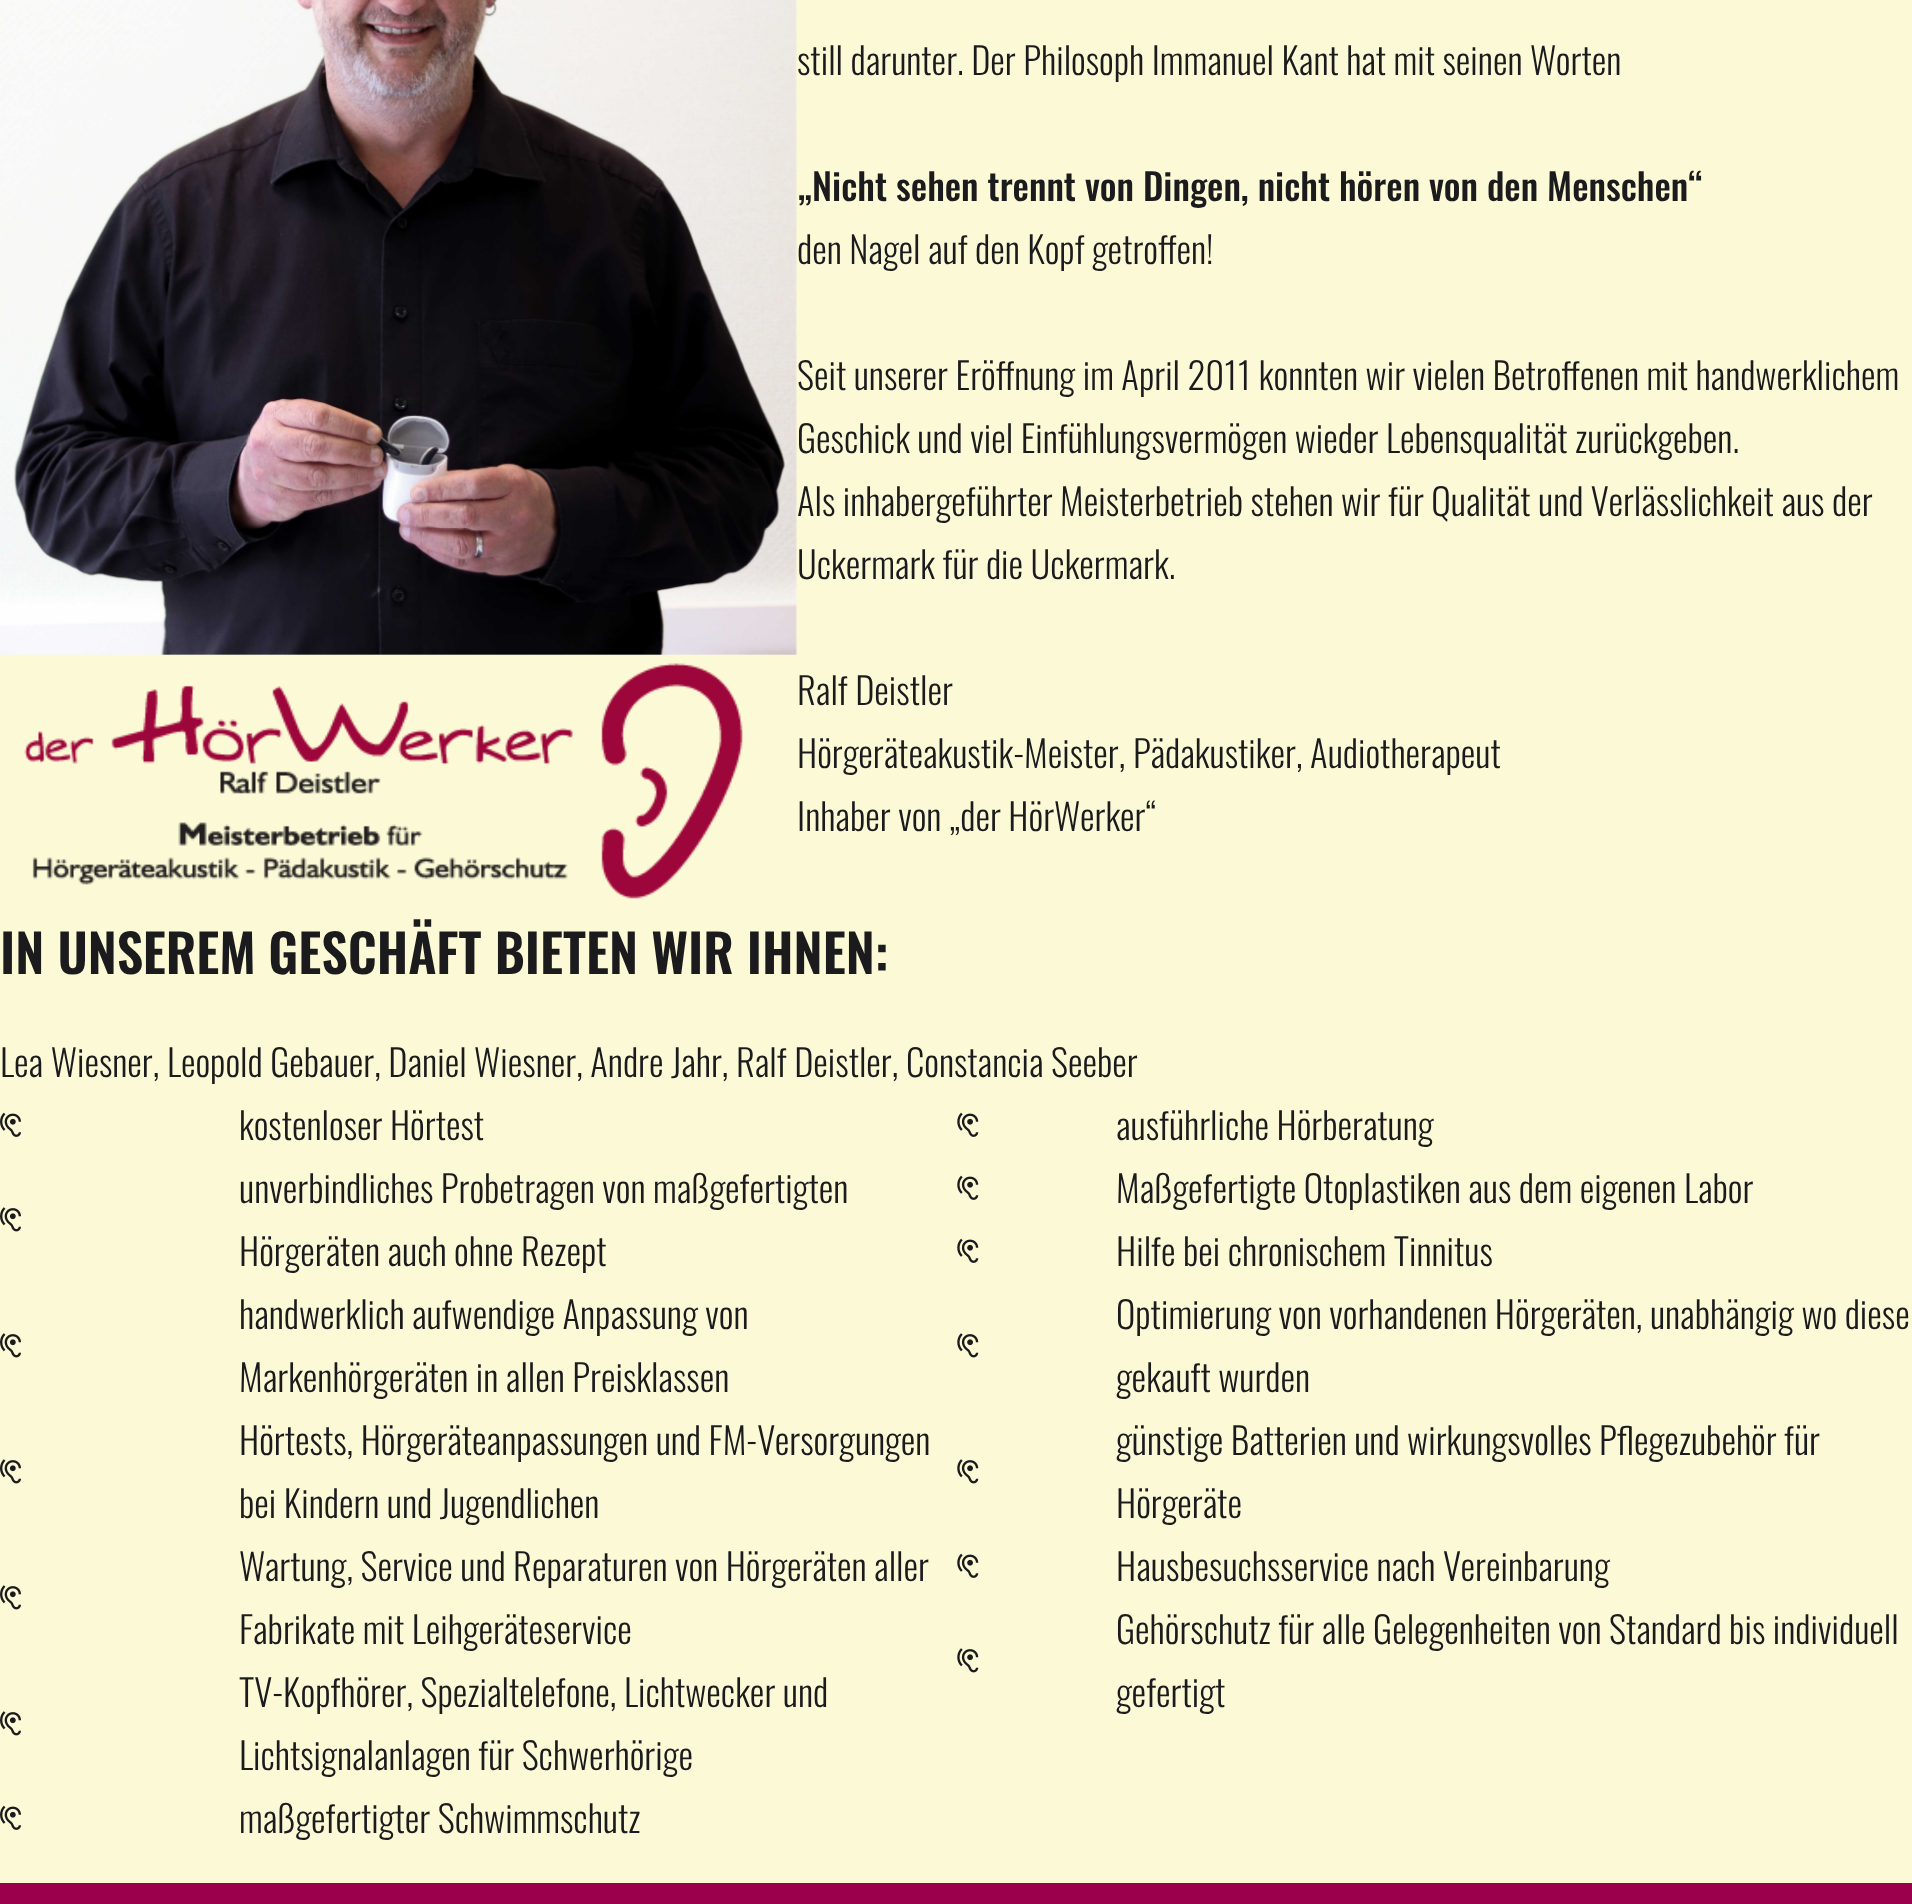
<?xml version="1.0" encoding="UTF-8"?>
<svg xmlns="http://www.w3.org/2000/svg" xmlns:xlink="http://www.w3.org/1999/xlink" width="1912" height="1904">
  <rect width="100%" height="100%" fill="#fcfad6" />
  <image x="0" y="0" width="797" height="655" xlink:href="image1.png" />
  <image x="24" y="663" width="719" height="236" xlink:href="image2.png" />
  <image x="0" y="1112" width="21" height="25" xlink:href="image3.png" />
  <image x="0" y="1207" width="21" height="25" xlink:href="image4.png" />
  <image x="0" y="1333" width="21" height="25" xlink:href="image4.png" />
  <image x="0" y="1459" width="21" height="25" xlink:href="image4.png" />
  <image x="0" y="1585" width="21" height="25" xlink:href="image4.png" />
  <image x="0" y="1711" width="21" height="25" xlink:href="image4.png" />
  <image x="0" y="1805" width="21" height="25" xlink:href="image3.png" />
  <image x="957" y="1112" width="22" height="25" xlink:href="image5.png" />
  <image x="957" y="1175" width="22" height="25" xlink:href="image5.png" />
  <image x="957" y="1238" width="22" height="25" xlink:href="image5.png" />
  <image x="957" y="1333" width="22" height="25" xlink:href="image6.png" />
  <image x="957" y="1459" width="22" height="25" xlink:href="image6.png" />
  <image x="957" y="1553" width="22" height="25" xlink:href="image5.png" />
  <image x="957" y="1648" width="22" height="25" xlink:href="image6.png" />
  <rect y="1883" width="1912" height="21" fill="#9a004c" />
  <text x="797" y="75" style="font-family: Oswald; font-size: 36.75px; font-weight: 300; fill: #1b1b1d">still darunter. Der Philosoph Immanuel Kant hat mit seinen Worten</text>
  <text x="797" y="201" style="font-family: Oswald; font-size: 36.75px; font-weight: 500; fill: #1b1b1d">„Nicht sehen trennt von Dingen, nicht hören von den Menschen“</text>
  <text x="797" y="264" style="font-family: Oswald; font-size: 36.75px; font-weight: 300; fill: #1b1b1d">den Nagel auf den Kopf getroffen!</text>
  <text x="797" y="390" style="font-family: Oswald; font-size: 36.75px; font-weight: 300; fill: #1b1b1d">Seit unserer Eröffnung im April 2011 konnten wir vielen Betroffenen mit handwerklichem</text>
  <text x="797" y="453" style="font-family: Oswald; font-size: 36.75px; font-weight: 300; fill: #1b1b1d">Geschick und viel Einfühlungsvermögen wieder Lebensqualität zurückgeben.</text>
  <text x="797" y="516" style="font-family: Oswald; font-size: 36.75px; font-weight: 300; fill: #1b1b1d">Als inhabergeführter Meisterbetrieb stehen wir für Qualität und Verlässlichkeit aus der</text>
  <text x="797" y="579" style="font-family: Oswald; font-size: 36.75px; font-weight: 300; fill: #1b1b1d">Uckermark für die Uckermark.</text>
  <text x="797" y="705" style="font-family: Oswald; font-size: 36.75px; font-weight: 300; fill: #1b1b1d">Ralf Deistler</text>
  <text x="797" y="768" style="font-family: Oswald; font-size: 36.75px; font-weight: 300; fill: #1b1b1d">Hörgeräteakustik-Meister, Pädakustiker, Audiotherapeut</text>
  <text x="797" y="831" style="font-family: Oswald; font-size: 36.75px; font-weight: 300; fill: #1b1b1d">Inhaber von „der HörWerker“</text>
  <text x="0" y="974" style="font-family: Oswald; font-size: 52.5px; font-weight: 600; fill: #1b1b1d">IN UNSEREM GESCHÄFT BIETEN WIR IHNEN:</text>
  <text x="0" y="1077" style="font-family: Oswald; font-size: 36.75px; font-weight: 300; fill: #1b1b1d">Lea Wiesner, Leopold Gebauer, Daniel Wiesner, Andre Jahr, Ralf Deistler, Constancia Seeber</text>
  <text x="239" y="1140" style="font-family: Oswald; font-size: 36.75px; font-weight: 300; fill: #1b1b1d">kostenloser Hörtest</text>
  <text x="239" y="1203" style="font-family: Oswald; font-size: 36.75px; font-weight: 300; fill: #1b1b1d">unverbindliches Probetragen von maßgefertigten</text>
  <text x="239" y="1266" style="font-family: Oswald; font-size: 36.75px; font-weight: 300; fill: #1b1b1d">Hörgeräten auch ohne Rezept</text>
  <text x="239" y="1329" style="font-family: Oswald; font-size: 36.75px; font-weight: 300; fill: #1b1b1d">handwerklich aufwendige Anpassung von</text>
  <text x="239" y="1392" style="font-family: Oswald; font-size: 36.75px; font-weight: 300; fill: #1b1b1d">Markenhörgeräten in allen Preisklassen</text>
  <text x="239" y="1455" style="font-family: Oswald; font-size: 36.75px; font-weight: 300; fill: #1b1b1d">Hörtests, Hörgeräteanpassungen und FM-Versorgungen</text>
  <text x="239" y="1518" style="font-family: Oswald; font-size: 36.75px; font-weight: 300; fill: #1b1b1d">bei Kindern und Jugendlichen</text>
  <text x="239" y="1581" style="font-family: Oswald; font-size: 36.75px; font-weight: 300; fill: #1b1b1d">Wartung, Service und Reparaturen von Hörgeräten aller</text>
  <text x="239" y="1644" style="font-family: Oswald; font-size: 36.75px; font-weight: 300; fill: #1b1b1d">Fabrikate mit Leihgeräteservice</text>
  <text x="239" y="1707" style="font-family: Oswald; font-size: 36.75px; font-weight: 300; fill: #1b1b1d">TV-Kopfhörer, Spezialtelefone, Lichtwecker und</text>
  <text x="239" y="1770" style="font-family: Oswald; font-size: 36.75px; font-weight: 300; fill: #1b1b1d">Lichtsignalanlagen für Schwerhörige</text>
  <text x="239" y="1833" style="font-family: Oswald; font-size: 36.75px; font-weight: 300; fill: #1b1b1d">maßgefertigter Schwimmschutz</text>
  <text x="1116" y="1140" style="font-family: Oswald; font-size: 36.75px; font-weight: 300; fill: #1b1b1d">ausführliche Hörberatung</text>
  <text x="1116" y="1203" style="font-family: Oswald; font-size: 36.75px; font-weight: 300; fill: #1b1b1d">Maßgefertigte Otoplastiken aus dem eigenen Labor</text>
  <text x="1116" y="1266" style="font-family: Oswald; font-size: 36.75px; font-weight: 300; fill: #1b1b1d">Hilfe bei chronischem Tinnitus</text>
  <text x="1116" y="1329" style="font-family: Oswald; font-size: 36.75px; font-weight: 300; fill: #1b1b1d">Optimierung von vorhandenen Hörgeräten, unabhängig wo diese</text>
  <text x="1116" y="1392" style="font-family: Oswald; font-size: 36.75px; font-weight: 300; fill: #1b1b1d">gekauft wurden</text>
  <text x="1116" y="1455" style="font-family: Oswald; font-size: 36.75px; font-weight: 300; fill: #1b1b1d">günstige Batterien und wirkungsvolles Pflegezubehör für</text>
  <text x="1116" y="1518" style="font-family: Oswald; font-size: 36.75px; font-weight: 300; fill: #1b1b1d">Hörgeräte</text>
  <text x="1116" y="1581" style="font-family: Oswald; font-size: 36.75px; font-weight: 300; fill: #1b1b1d">Hausbesuchsservice nach Vereinbarung</text>
  <text x="1116" y="1644" style="font-family: Oswald; font-size: 36.75px; font-weight: 300; fill: #1b1b1d">Gehörschutz für alle Gelegenheiten von Standard bis individuell</text>
  <text x="1116" y="1707" style="font-family: Oswald; font-size: 36.75px; font-weight: 300; fill: #1b1b1d">gefertigt</text>
</svg>
